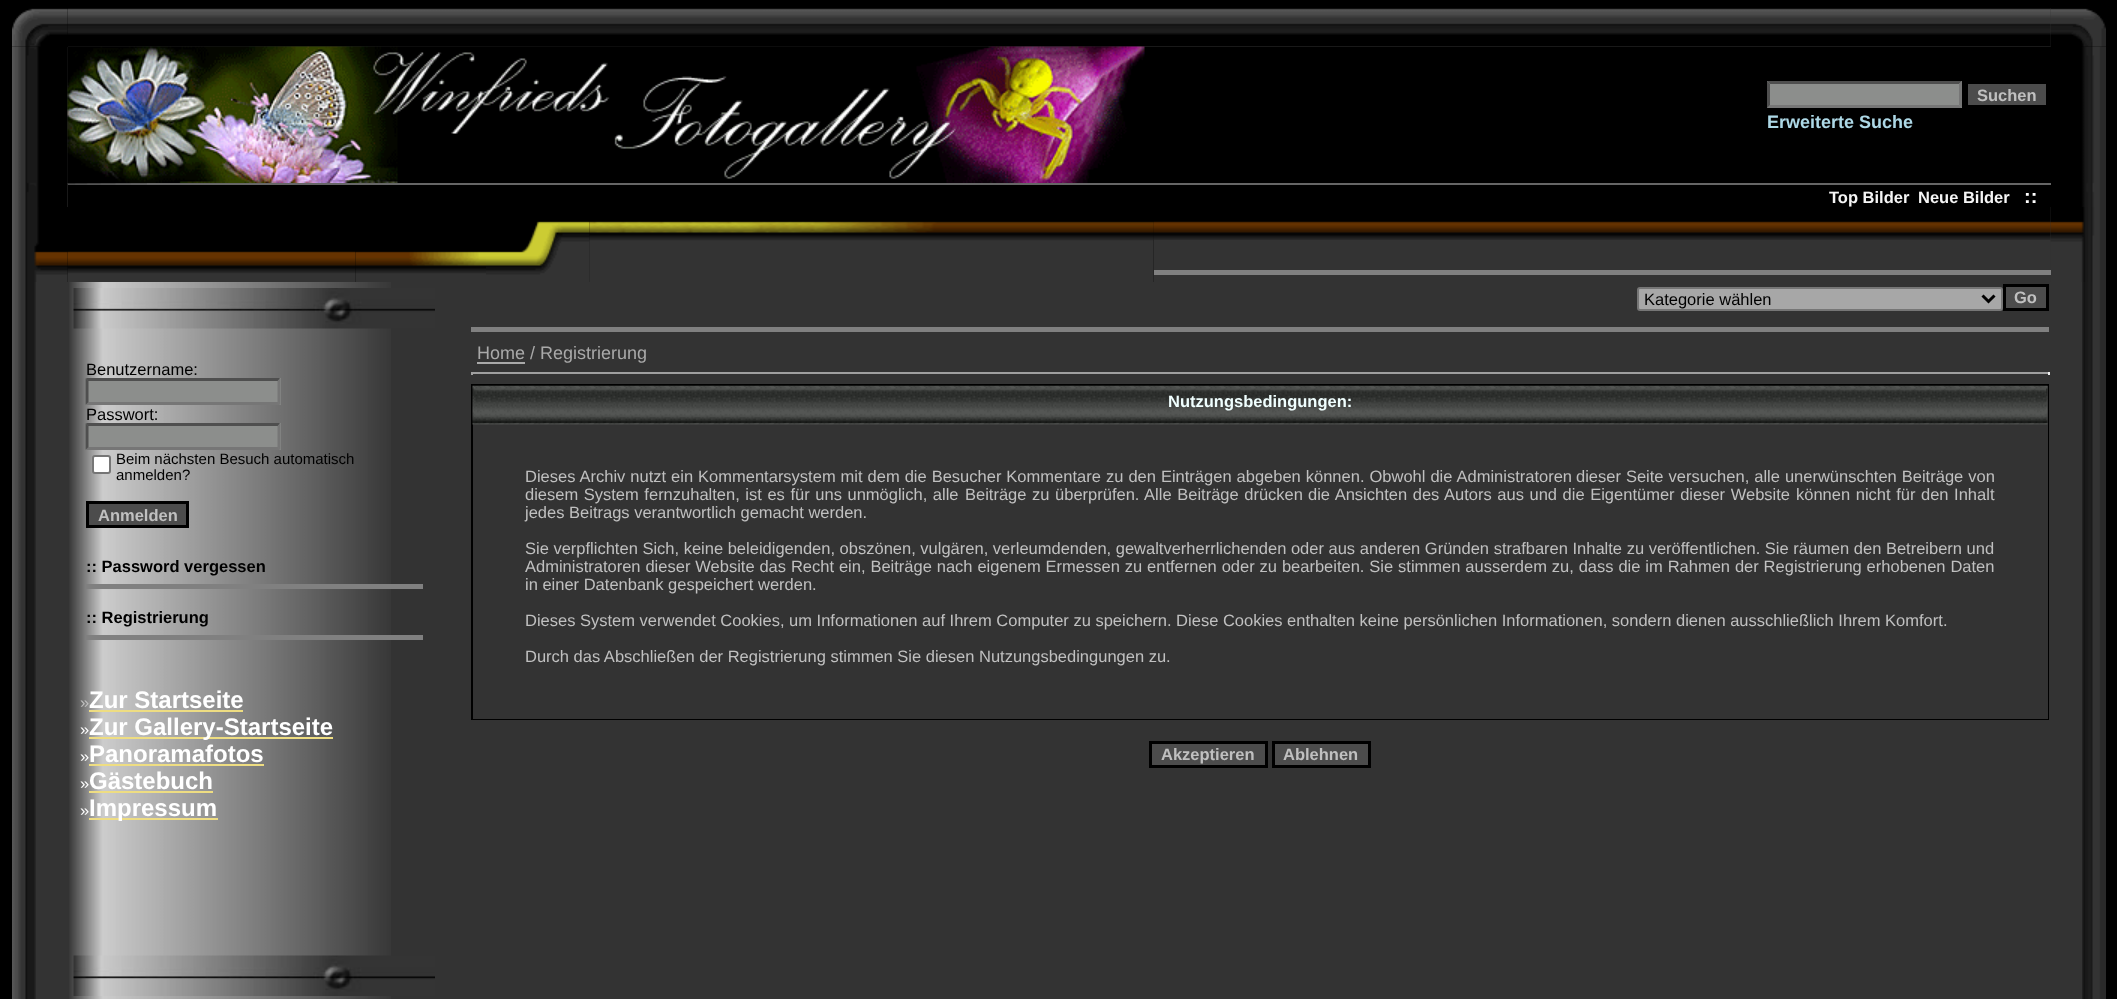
<?xml version="1.0" encoding="UTF-8"?>
<svg xmlns="http://www.w3.org/2000/svg" xmlns:xlink="http://www.w3.org/1999/xlink" width="2117" height="999">
  <rect width="100%" height="100%" fill="#000000" />
  <rect x="68" y="8" width="1983" height="39" fill="#333333" />
  <image x="67" y="8" width="1984" height="39" xlink:href="image2.png" />
  <rect x="67" y="47" width="1" height="160" fill="#333333" />
  <image x="12" y="46" width="56" height="161" xlink:href="image4.png" />
  <image x="12" y="8" width="56" height="39" xlink:href="image1.png" />
  <image x="2050" y="46" width="56" height="161" xlink:href="image6.png" />
  <image x="2050" y="8" width="56" height="39" xlink:href="image3.png" />
  <image x="67" y="46" width="1078" height="137" xlink:href="image5.png" />
  <rect x="1767" y="81" width="195" height="27" fill="#8c8e8c" />
  <path d="M 1767 81 h 195 l -3 3 h -189 z" fill="#4f4f4f" />
  <path d="M 1962 81 v 27 l -3 -3 v -21 z" fill="#767676" />
  <path d="M 1962 108 h -195 l 3 -3 h 189 z" fill="#767676" />
  <path d="M 1767 108 v -27 l 3 3 v 21 z" fill="#4f4f4f" />
  <rect x="1968" y="84" width="78" height="21" fill="#4c4c4c" />
  <rect x="68" y="183" width="1983" height="2" fill="#666666" />
  <image x="67" y="183" width="80" height="2" xlink:href="image7.png" />
  <image x="67" y="207" width="289" height="75" xlink:href="image9.png" />
  <image x="12" y="207" width="56" height="75" xlink:href="image8.png" />
  <image x="355" y="207" width="131" height="75" xlink:href="image10.png" />
  <image x="589" y="207" width="565" height="75" xlink:href="image12.png" />
  <image x="486" y="221" width="104" height="61" xlink:href="image11.png" />
  <rect x="1154" y="207" width="897" height="75" fill="#333333" />
  <image x="1153" y="207" width="898" height="33" xlink:href="image14.png" />
  <image x="589" y="207" width="565" height="75" xlink:href="image13.png" />
  <image x="2050" y="207" width="56" height="75" xlink:href="image15.png" />
  <rect x="1154" y="270" width="897" height="5" fill="#808080" />
  <rect x="36" y="282" width="2046" height="717" fill="#333333" />
  <image x="12" y="282" width="24" height="717" xlink:href="image16.png" />
  <image x="69" y="282" width="322" height="717" xlink:href="image17.png" />
  <image x="73" y="288" width="362" height="41" xlink:href="image18.png" />
  <rect x="85" y="378" width="196" height="27" fill="#8c8e8c" />
  <path d="M 86 378 h 194 l -2 3 h -190 z" fill="#4f4f4f" />
  <path d="M 280.5 378 v 27 l -3 -3 v -21 z" fill="#767676" />
  <path d="M 280 405 h -194 l 2 -3 h 190 z" fill="#767676" />
  <path d="M 85.5 405 v -27 l 3 3 v 21 z" fill="#4f4f4f" />
  <rect x="85" y="423" width="196" height="27" fill="#8c8e8c" />
  <path d="M 86 423 h 194 l -2 3 h -190 z" fill="#4f4f4f" />
  <path d="M 280.5 423 v 27 l -3 -3 v -21 z" fill="#767676" />
  <path d="M 280 450 h -194 l 2 -3 h 190 z" fill="#767676" />
  <path d="M 85.5 450 v -27 l 3 3 v 21 z" fill="#4f4f4f" />
  <rect x="93" y="456" width="17" height="17" rx="2" fill="#ffffff" stroke="#767676" stroke-width="2" />
  <rect x="87.5" y="502.5" width="100" height="24" fill="#4c4c4c" stroke="#000000" stroke-width="3" />
  <rect x="86" y="584" width="337" height="5" fill="#808080" />
  <rect x="86" y="635" width="337" height="5" fill="#808080" />
  <rect x="89" y="710" width="154" height="2" fill="#eedd82" />
  <rect x="89" y="737" width="244" height="2" fill="#eedd82" />
  <rect x="89" y="764" width="175" height="2" fill="#eedd82" />
  <rect x="89" y="791" width="124" height="2" fill="#eedd82" />
  <rect x="89" y="818" width="129" height="2" fill="#eedd82" />
  <image x="73" y="955" width="362" height="41" xlink:href="image19.png" />
  <rect x="1638" y="288" width="364" height="22" rx="2" fill="#a7a7a7" stroke="#767676" stroke-width="2" />
  <path d="M 1982.5 295.5 l 6 6 l 6 -6" fill="none" stroke="#000000" stroke-width="3" />
  <rect x="2004.5" y="285.5" width="43" height="24" fill="#4c4c4c" stroke="#000000" stroke-width="3" />
  <rect x="471" y="327" width="1578" height="5" fill="#808080" />
  <rect x="477" y="362" width="48" height="2" fill="#a9a9a9" />
  <rect x="471" y="372" width="1578" height="2" fill="#9f9f9f" />
  <rect x="2048" y="372" width="2" height="3" fill="#eeeeee" />
  <rect x="471" y="372" width="2" height="3" fill="#9f9f9f" />
  <rect x="472" y="385" width="1576" height="334" fill="none" stroke="#000000" stroke-width="2" />
  <rect x="473" y="386" width="1575" height="333" fill="#333333" />
  <image x="472" y="385" width="1576" height="40" xlink:href="image20.png" />
  <image x="474" y="387" width="1572" height="30" xlink:href="image21.png" />
  <rect x="1150.5" y="742.5" width="116" height="24" fill="#4c4c4c" stroke="#000000" stroke-width="3" />
  <rect x="1273.5" y="742.5" width="96" height="24" fill="#4c4c4c" stroke="#000000" stroke-width="3" />
  <image x="2082" y="282" width="24" height="717" xlink:href="image22.png" />
  <text x="1977" y="101" style="font-family: Liberation Sans; font-size: 16.5px; font-weight: bold; fill: #c0c0c0">Suchen</text>
  <text x="1767" y="128" style="font-family: Liberation Sans; font-size: 18px; font-weight: bold; fill: #add8e6">Erweiterte Suche</text>
  <text x="1829" y="203" style="font-family: Liberation Sans; font-size: 16.5px; font-weight: bold; fill: #f5f5f5">Top Bilder</text>
  <text x="1918" y="203" style="font-family: Liberation Sans; font-size: 16.5px; font-weight: bold; fill: #f5f5f5">Neue Bilder</text>
  <text x="2024" y="203" style="font-family: Liberation Sans; font-size: 20px; font-weight: bold; fill: #ffffff">::</text>
  <text x="86" y="375" style="font-family: Liberation Sans; font-size: 16.5px; fill: #000000">Benutzername:</text>
  <text x="86" y="420" style="font-family: Liberation Sans; font-size: 16.5px; fill: #000000">Passwort:</text>
  <text x="116" y="464" style="font-family: Liberation Sans; font-size: 15px; fill: #000000">Beim nächsten Besuch automatisch</text>
  <text x="116" y="480" style="font-family: Liberation Sans; font-size: 15px; fill: #000000">anmelden?</text>
  <text x="98" y="521" style="font-family: Liberation Sans; font-size: 16.5px; font-weight: bold; fill: #c0c0c0">Anmelden</text>
  <text x="86" y="572" style="font-family: Liberation Sans; font-size: 16.5px; font-weight: bold; fill: #000000">:: Password vergessen</text>
  <text x="86" y="623" style="font-family: Liberation Sans; font-size: 16.5px; font-weight: bold; fill: #000000">:: Registrierung</text>
  <text x="80" y="708" style="font-family: Liberation Sans; font-size: 16.5px; fill: #c0c0c0">»</text>
  <text x="89" y="708" style="font-family: Liberation Sans; font-size: 24px; font-weight: bold; fill: #ffffff">Zur Startseite</text>
  <text x="80" y="735" style="font-family: Liberation Sans; font-size: 16.5px; fill: #ffffff">»</text>
  <text x="89" y="735" style="font-family: Liberation Sans; font-size: 24px; font-weight: bold; fill: #ffffff">Zur Gallery-Startseite</text>
  <text x="80" y="762" style="font-family: Liberation Sans; font-size: 16.5px; fill: #ffffff">»</text>
  <text x="89" y="762" style="font-family: Liberation Sans; font-size: 24px; font-weight: bold; fill: #ffffff">Panoramafotos</text>
  <text x="80" y="789" style="font-family: Liberation Sans; font-size: 16.5px; fill: #ffffff">»</text>
  <text x="89" y="789" style="font-family: Liberation Sans; font-size: 24px; font-weight: bold; fill: #ffffff">Gästebuch</text>
  <text x="80" y="816" style="font-family: Liberation Sans; font-size: 16.5px; fill: #ffffff">»</text>
  <text x="89" y="816" style="font-family: Liberation Sans; font-size: 24px; font-weight: bold; fill: #ffffff">Impressum</text>
  <text x="1644" y="305" style="font-family: Liberation Sans; font-size: 16.5px; fill: #000000">Kategorie wählen</text>
  <text x="2014" y="303" style="font-family: Liberation Sans; font-size: 16.5px; font-weight: bold; fill: #c0c0c0">Go</text>
  <text x="477" y="359" style="font-family: Liberation Sans; font-size: 18px; fill: #a9a9a9">Home / Registrierung</text>
  <text x="1168" y="407" style="font-family: Liberation Sans; font-size: 16.5px; font-weight: bold; fill: #f0ffff">Nutzungsbedingungen:</text>
  <text x="525" y="482" word-spacing="0.4" style="font-family: Liberation Sans; font-size: 16.5px; fill: #c0c0c0">Dieses Archiv nutzt ein Kommentarsystem mit dem die Besucher Kommentare</text>
  <text x="1106" y="482" word-spacing="0.4" style="font-family: Liberation Sans; font-size: 16.5px; fill: #c0c0c0">zu den Einträgen abgeben können. Obwohl die Administratoren</text>
  <text x="1576" y="482" word-spacing="0.4" style="font-family: Liberation Sans; font-size: 16.5px; fill: #c0c0c0">dieser Seite versuchen, alle unerwünschten Beiträge von</text>
  <text x="525" y="500" word-spacing="1" style="font-family: Liberation Sans; font-size: 16.5px; fill: #c0c0c0">diesem System fernzuhalten, ist es für uns unmöglich, alle</text>
  <text x="965" y="500" word-spacing="1" style="font-family: Liberation Sans; font-size: 16.5px; fill: #c0c0c0">Beiträge zu überprüfen. Alle Beiträge drücken</text>
  <text x="1308" y="500" word-spacing="1" style="font-family: Liberation Sans; font-size: 16.5px; fill: #c0c0c0">die Ansichten des Autors aus und die Eigentümer dieser Website</text>
  <text x="1796" y="500" word-spacing="1" style="font-family: Liberation Sans; font-size: 16.5px; fill: #c0c0c0">können nicht für den Inhalt</text>
  <text x="525" y="518" style="font-family: Liberation Sans; font-size: 16.5px; fill: #c0c0c0">jedes Beitrags verantwortlich gemacht werden.</text>
  <text x="525" y="554" style="font-family: Liberation Sans; font-size: 16.5px; fill: #c0c0c0">Sie verpflichten Sich, keine beleidigenden, obszönen, vulgären, verleumdenden, gewaltverherrlichenden oder aus anderen Gründen strafbaren Inhalte zu veröffentlichen. Sie räumen den Betreibern und</text>
  <text x="525" y="572" word-spacing="0.3" style="font-family: Liberation Sans; font-size: 16.5px; fill: #c0c0c0">Administratoren dieser Website das Recht ein, Beiträge nach eigenem Ermessen zu entfernen oder zu bearbeiten. Sie stimmen ausserdem zu, dass die im Rahmen der Registrierung erhobenen Daten</text>
  <text x="525" y="590" style="font-family: Liberation Sans; font-size: 16.5px; fill: #c0c0c0">in einer Datenbank gespeichert werden.</text>
  <text x="525" y="626" style="font-family: Liberation Sans; font-size: 16.5px; fill: #c0c0c0">Dieses System verwendet Cookies, um Informationen auf Ihrem Computer zu speichern. Diese Cookies enthalten keine persönlichen Informationen, sondern dienen ausschließlich Ihrem Komfort.</text>
  <text x="525" y="662" style="font-family: Liberation Sans; font-size: 16.5px; fill: #c0c0c0">Durch das Abschließen der Registrierung stimmen Sie diesen Nutzungsbedingungen zu.</text>
  <text x="1161" y="760" style="font-family: Liberation Sans; font-size: 16.5px; font-weight: bold; fill: #c0c0c0">Akzeptieren</text>
  <text x="1283" y="760" style="font-family: Liberation Sans; font-size: 16.5px; font-weight: bold; fill: #c0c0c0">Ablehnen</text>
</svg>
